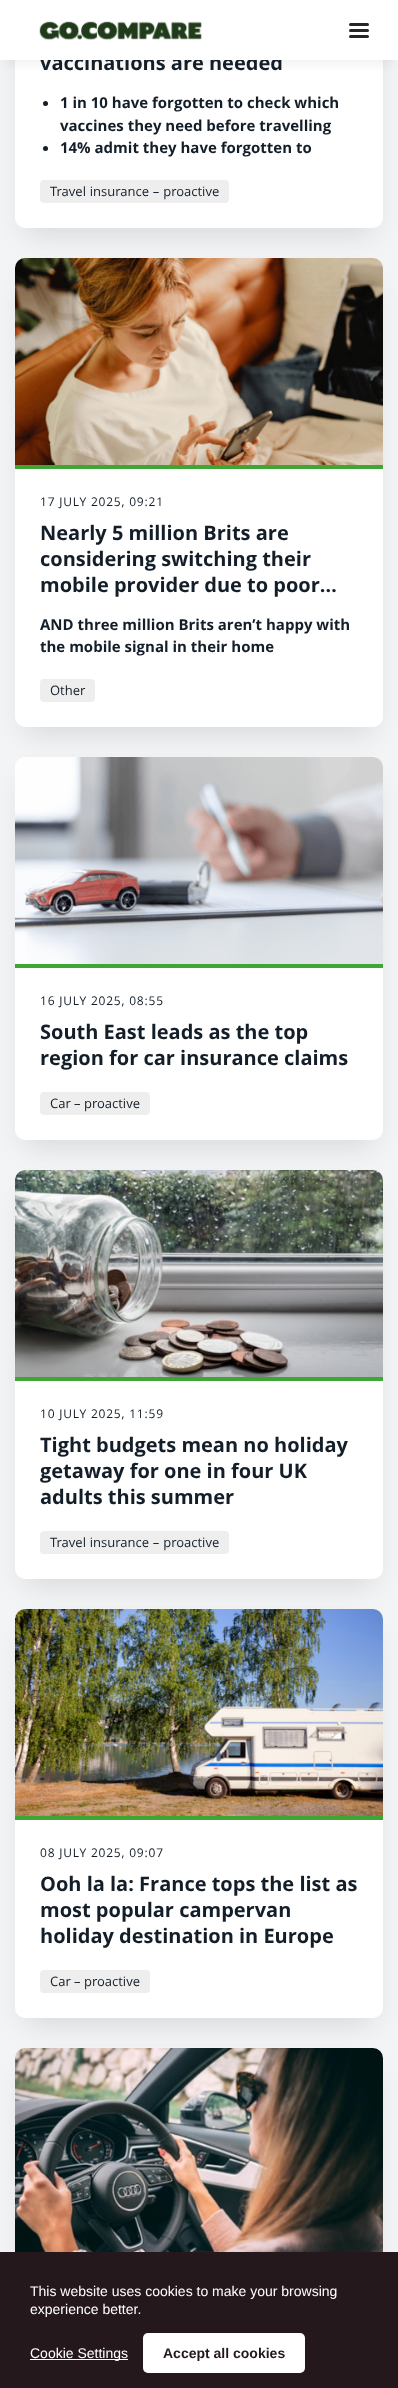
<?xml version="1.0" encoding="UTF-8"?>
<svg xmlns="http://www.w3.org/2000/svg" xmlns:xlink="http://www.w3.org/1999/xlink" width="398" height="2388">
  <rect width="100%" height="100%" fill="#f2f4f5" />
  <rect x="25" y="-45" width="348" height="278" fill="#000000" fill-opacity="0.12" filter="blur(15px)" />
  <rect x="15" y="-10" width="368" height="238" rx="10" fill="#ffffff" />
  <rect x="5" y="15" width="388" height="50" fill="#000000" fill-opacity="0.05" filter="blur(5px)" />
  <circle cx="45.5" cy="103.5" r="2.5" fill="#131e29" />
  <circle cx="45.5" cy="148.5" r="2.5" fill="#131e29" />
  <rect x="40" y="180" width="189" height="23" rx="4" fill="#eeeeee" />
  <rect x="25" y="283" width="348" height="449" fill="#000000" fill-opacity="0.12" filter="blur(15px)" />
  <rect x="15" y="258" width="368" height="469" rx="10" fill="#ffffff" />
  <rect x="15" y="465" width="368" height="4" fill="#3fa534" />
  <image x="15" y="258" width="368" height="207" xlink:href="image2.png" />
  <rect x="40" y="679" width="55" height="23" rx="4" fill="#eeeeee" />
  <rect x="25" y="782" width="348" height="363" fill="#000000" fill-opacity="0.12" filter="blur(15px)" />
  <rect x="15" y="757" width="368" height="383" rx="10" fill="#ffffff" />
  <rect x="15" y="964" width="368" height="4" fill="#3fa534" />
  <image x="15" y="757" width="368" height="207" xlink:href="image3.png" />
  <rect x="40" y="1092" width="110" height="23" rx="4" fill="#eeeeee" />
  <rect x="25" y="1195" width="348" height="389" fill="#000000" fill-opacity="0.12" filter="blur(15px)" />
  <rect x="15" y="1170" width="368" height="409" rx="10" fill="#ffffff" />
  <rect x="15" y="1377" width="368" height="4" fill="#3fa534" />
  <image x="15" y="1170" width="368" height="207" xlink:href="image4.png" />
  <rect x="40" y="1531" width="189" height="23" rx="4" fill="#eeeeee" />
  <rect x="25" y="1634" width="348" height="389" fill="#000000" fill-opacity="0.12" filter="blur(15px)" />
  <rect x="15" y="1609" width="368" height="409" rx="10" fill="#ffffff" />
  <rect x="15" y="1816" width="368" height="4" fill="#3fa534" />
  <image x="15" y="1609" width="368" height="207" xlink:href="image5.png" />
  <rect x="40" y="1970" width="110" height="23" rx="4" fill="#eeeeee" />
  <rect x="25" y="2073" width="348" height="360" fill="#000000" fill-opacity="0.12" filter="blur(15px)" />
  <rect x="15" y="2048" width="368" height="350" rx="10" fill="#ffffff" />
  <image x="15" y="2048" width="368" height="204" xlink:href="image6.png" />
  <rect y="2252" width="398" height="136" fill="#25181d" />
  <rect x="30" y="2359" width="98" height="1" fill="#ffffff" />
  <rect x="143" y="2333" width="162" height="40" rx="5" fill="#ffffff" />
  <text x="40" y="70" style="font-family: Open Sans; font-size: 20px; font-weight: bold; fill: #131e29">vaccinations are needed</text>
  <rect width="398" height="60" fill="#ffffff" />
  <rect x="349" y="35" width="20" height="3" rx="1.5" fill="#262626" />
  <rect x="349" y="23" width="20" height="3" rx="1.5" fill="#262626" />
  <rect x="349" y="29" width="20" height="3" rx="1.5" fill="#262626" />
  <image x="39" y="21" width="163" height="19" xlink:href="image1.png" />
  <text x="60" y="108" style="font-family: Open Sans; font-size: 15px; font-weight: bold; fill: #131e29">1 in 10 have forgotten to check which</text>
  <text x="60" y="131" style="font-family: Open Sans; font-size: 15px; font-weight: bold; fill: #131e29">vaccines they need before travelling</text>
  <text x="60" y="153" style="font-family: Open Sans; font-size: 15px; font-weight: bold; fill: #131e29">14% admit they have forgotten to</text>
  <text x="50" y="196" word-spacing="0.5" style="font-family: Open Sans; font-size: 13px; fill: #131e29">Travel insurance – proactive</text>
  <text x="40" y="506" style="font-family: Open Sans; font-size: 12px; letter-spacing: 0.8px; fill: #131e29">17 JULY 2025, 09:21</text>
  <text x="40" y="540" style="font-family: Open Sans; font-size: 20px; font-weight: bold; fill: #131e29">Nearly 5 million Brits are</text>
  <text x="40" y="566" style="font-family: Open Sans; font-size: 20px; font-weight: bold; fill: #131e29">considering switching their</text>
  <text x="40" y="592" style="font-family: Open Sans; font-size: 20px; font-weight: bold; fill: #131e29">mobile provider due to poor…</text>
  <text x="40" y="630" style="font-family: Open Sans; font-size: 15px; font-weight: bold; fill: #131e29">AND three million Brits aren’t happy with</text>
  <text x="40" y="652" style="font-family: Open Sans; font-size: 15px; font-weight: bold; fill: #131e29">the mobile signal in their home</text>
  <text x="50" y="695" style="font-family: Open Sans; font-size: 13px; fill: #131e29">Other</text>
  <text x="40" y="1005" style="font-family: Open Sans; font-size: 12px; letter-spacing: 0.8px; fill: #131e29">16 JULY 2025, 08:55</text>
  <text x="40" y="1039" style="font-family: Open Sans; font-size: 20px; font-weight: bold; fill: #131e29">South East leads as the top</text>
  <text x="40" y="1065" style="font-family: Open Sans; font-size: 20px; font-weight: bold; fill: #131e29">region for car insurance claims</text>
  <text x="50" y="1108" style="font-family: Open Sans; font-size: 13px; fill: #131e29">Car – proactive</text>
  <text x="40" y="1418" style="font-family: Open Sans; font-size: 12px; letter-spacing: 0.8px; fill: #131e29">10 JULY 2025, 11:59</text>
  <text x="40" y="1452" style="font-family: Open Sans; font-size: 20px; font-weight: bold; fill: #131e29">Tight budgets mean no holiday</text>
  <text x="40" y="1478" style="font-family: Open Sans; font-size: 20px; font-weight: bold; fill: #131e29">getaway for one in four UK</text>
  <text x="40" y="1504" style="font-family: Open Sans; font-size: 20px; font-weight: bold; fill: #131e29">adults this summer</text>
  <text x="50" y="1547" word-spacing="0.5" style="font-family: Open Sans; font-size: 13px; fill: #131e29">Travel insurance – proactive</text>
  <text x="40" y="1857" style="font-family: Open Sans; font-size: 12px; letter-spacing: 0.8px; fill: #131e29">08 JULY 2025, 09:07</text>
  <text x="40" y="1891" style="font-family: Open Sans; font-size: 20px; font-weight: bold; fill: #131e29">Ooh la la: France tops the list as</text>
  <text x="40" y="1917" style="font-family: Open Sans; font-size: 20px; font-weight: bold; fill: #131e29">most popular campervan</text>
  <text x="40" y="1943" style="font-family: Open Sans; font-size: 20px; font-weight: bold; fill: #131e29">holiday destination in Europe</text>
  <text x="50" y="1986" style="font-family: Open Sans; font-size: 13px; fill: #131e29">Car – proactive</text>
  <text x="30" y="2296" style="font-family: Liberation Sans; font-size: 14px; fill: #ffffff">This website uses cookies to make your browsing</text>
  <text x="30" y="2314" style="font-family: Liberation Sans; font-size: 14px; fill: #ffffff">experience better.</text>
  <text x="30" y="2358" style="font-family: Liberation Sans; font-size: 14px; fill: #ffffff">Cookie Settings</text>
  <text x="163" y="2358" style="font-family: Liberation Sans; font-size: 14px; font-weight: bold; fill: #25181d">Accept all cookies</text>
</svg>
